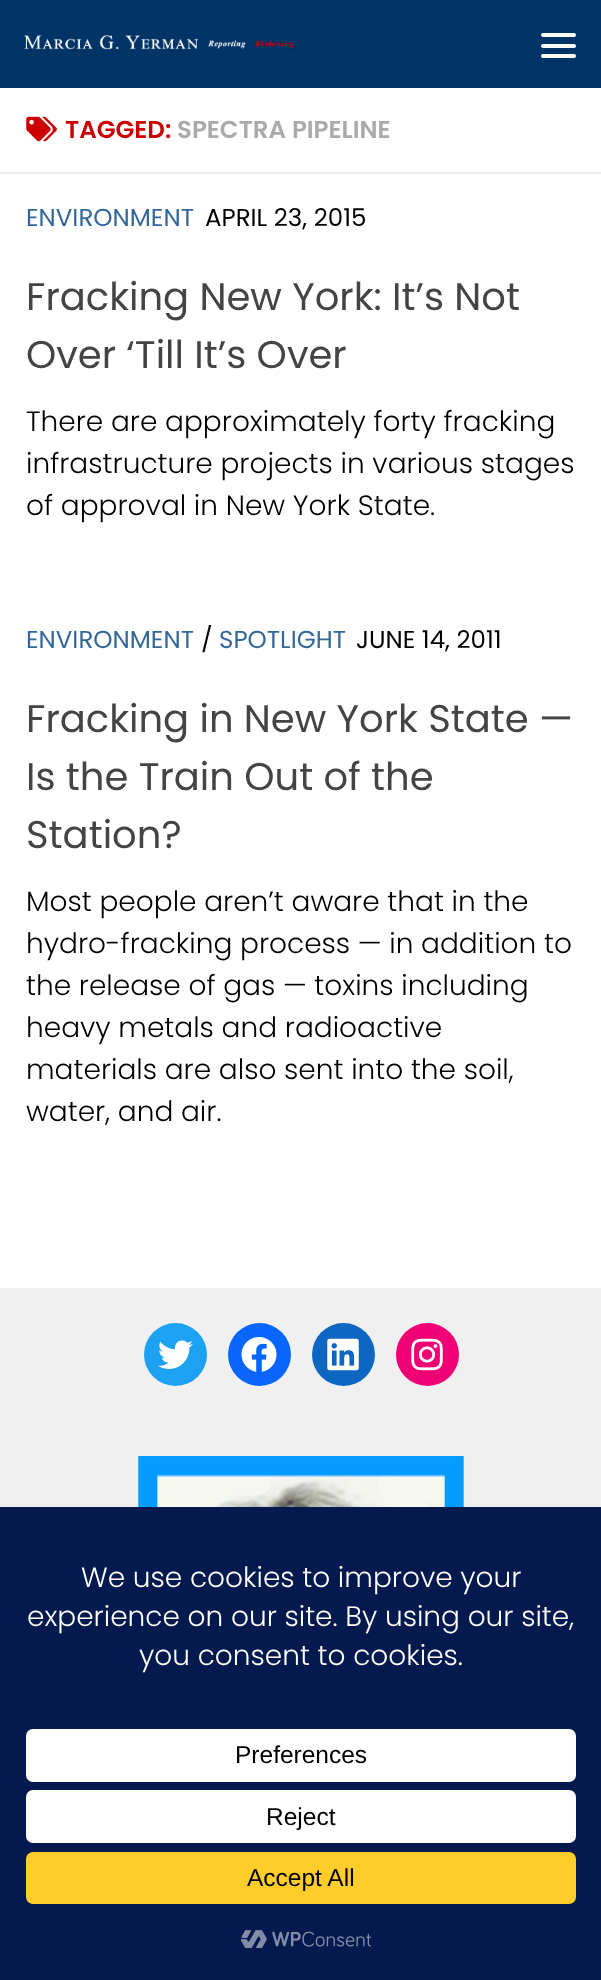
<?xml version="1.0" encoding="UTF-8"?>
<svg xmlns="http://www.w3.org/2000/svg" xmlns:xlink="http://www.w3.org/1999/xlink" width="601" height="1980">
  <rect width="100%" height="100%" fill="#ffffff" />
  <rect width="601" height="88" fill="#003366" />
  <image x="23" y="35" width="271" height="15" xlink:href="image1.png" />
  <rect x="541" y="33" width="35" height="4" rx="2" fill="#ffffff" />
  <rect x="541" y="44" width="35" height="4" rx="2" fill="#ffffff" />
  <rect x="541" y="54" width="35" height="4" rx="2" fill="#ffffff" />
  <rect y="172" width="601" height="2" fill="#eeeeee" />
  <image x="26" y="116" width="31" height="26" xlink:href="image2.png" />
  <rect y="1288" width="601" height="219" fill="#f0f0f0" />
  <circle cx="175.5" cy="1354.5" r="31.5" fill="#1da1f2" />
  <image x="158" y="1340" width="35" height="29" xlink:href="image3.png" />
  <circle cx="259.5" cy="1354.5" r="31.5" fill="#0866ff" />
  <image x="241" y="1337" width="36" height="35" xlink:href="image4.png" />
  <circle cx="343.5" cy="1354.5" r="31.5" fill="#0d66c2" />
  <image x="327" y="1338" width="32" height="33" xlink:href="image5.png" />
  <circle cx="427.5" cy="1354.5" r="31.5" fill="#f00075" />
  <image x="411" y="1338" width="32" height="33" xlink:href="image6.png" />
  <image x="138" y="1456" width="326" height="51" xlink:href="image7.png" />
  <rect y="1507" width="601" height="473" fill="#04194e" />
  <rect x="26" y="1729" width="550" height="53" rx="7" fill="#ffffff" />
  <rect x="26" y="1790" width="550" height="53" rx="7" fill="#ffffff" />
  <rect x="26" y="1852" width="550" height="52" rx="7" fill="#ffcd2a" />
  <image x="241" y="1930" width="130" height="18" xlink:href="image8.png" />
  <text x="65" y="138" style="font-family: Poppins; font-size: 24.5px; font-weight: 600; fill: #cc0000">TAGGED:</text>
  <text x="177" y="138" style="font-family: Poppins; font-size: 24.5px; font-weight: 600; fill: #aaaaaa">SPECTRA PIPELINE</text>
  <text x="26" y="226" style="font-family: Poppins; font-size: 24.5px; fill: #336699">ENVIRONMENT</text>
  <text x="205" y="226" style="font-family: Poppins; font-size: 24.5px; fill: #000000">APRIL 23, 2015</text>
  <text x="26" y="310" style="font-family: Poppins; font-size: 38.5px; fill: #444444">Fracking New York: It’s Not</text>
  <text x="26" y="368" style="font-family: Poppins; font-size: 38.5px; fill: #444444">Over ‘Till It’s Over</text>
  <text x="26" y="431" style="font-family: Poppins; font-size: 28px; font-weight: 300; fill: #000000">There are approximately forty fracking</text>
  <text x="26" y="473" style="font-family: Poppins; font-size: 28px; font-weight: 300; fill: #000000">infrastructure projects in various stages</text>
  <text x="26" y="515" style="font-family: Poppins; font-size: 28px; font-weight: 300; fill: #000000">of approval in New York State.</text>
  <text x="26" y="648" style="font-family: Poppins; font-size: 24.5px; fill: #336699">ENVIRONMENT</text>
  <text x="201" y="648" style="font-family: Poppins; font-size: 24.5px; fill: #000000">/</text>
  <text x="219" y="648" style="font-family: Poppins; font-size: 24.5px; fill: #336699">SPOTLIGHT</text>
  <text x="356" y="648" style="font-family: Poppins; font-size: 24.5px; fill: #000000">JUNE 14, 2011</text>
  <text x="26" y="732" style="font-family: Poppins; font-size: 38.5px; fill: #444444">Fracking in New York State —</text>
  <text x="26" y="790" style="font-family: Poppins; font-size: 38.5px; fill: #444444">Is the Train Out of the</text>
  <text x="26" y="848" style="font-family: Poppins; font-size: 38.5px; fill: #444444">Station?</text>
  <text x="26" y="911" style="font-family: Poppins; font-size: 28px; font-weight: 300; fill: #000000">Most people aren’t aware that in the</text>
  <text x="26" y="953" style="font-family: Poppins; font-size: 28px; font-weight: 300; fill: #000000">hydro-fracking process — in addition to</text>
  <text x="26" y="995" style="font-family: Poppins; font-size: 28px; font-weight: 300; fill: #000000">the release of gas — toxins including</text>
  <text x="26" y="1037" style="font-family: Poppins; font-size: 28px; font-weight: 300; fill: #000000">heavy metals and radioactive</text>
  <text x="26" y="1079" style="font-family: Poppins; font-size: 28px; font-weight: 300; fill: #000000">materials are also sent into the soil,</text>
  <text x="26" y="1121" style="font-family: Poppins; font-size: 28px; font-weight: 300; fill: #000000">water, and air.</text>
  <text x="81" y="1587" style="font-family: Poppins; font-size: 28px; font-weight: 300; fill: #ffffff">We use cookies to improve your</text>
  <text x="27" y="1626" style="font-family: Poppins; font-size: 28px; font-weight: 300; fill: #ffffff">experience on our site. By using our site,</text>
  <text x="139" y="1665" style="font-family: Poppins; font-size: 28px; font-weight: 300; fill: #ffffff">you consent to cookies.</text>
  <text x="235" y="1763" style="font-family: Liberation Sans; font-size: 24.5px; fill: #000000">Preferences</text>
  <text x="266" y="1825" style="font-family: Liberation Sans; font-size: 24.5px; fill: #000000">Reject</text>
  <text x="247" y="1886" style="font-family: Liberation Sans; font-size: 24.5px; fill: #000000">Accept All</text>
</svg>
